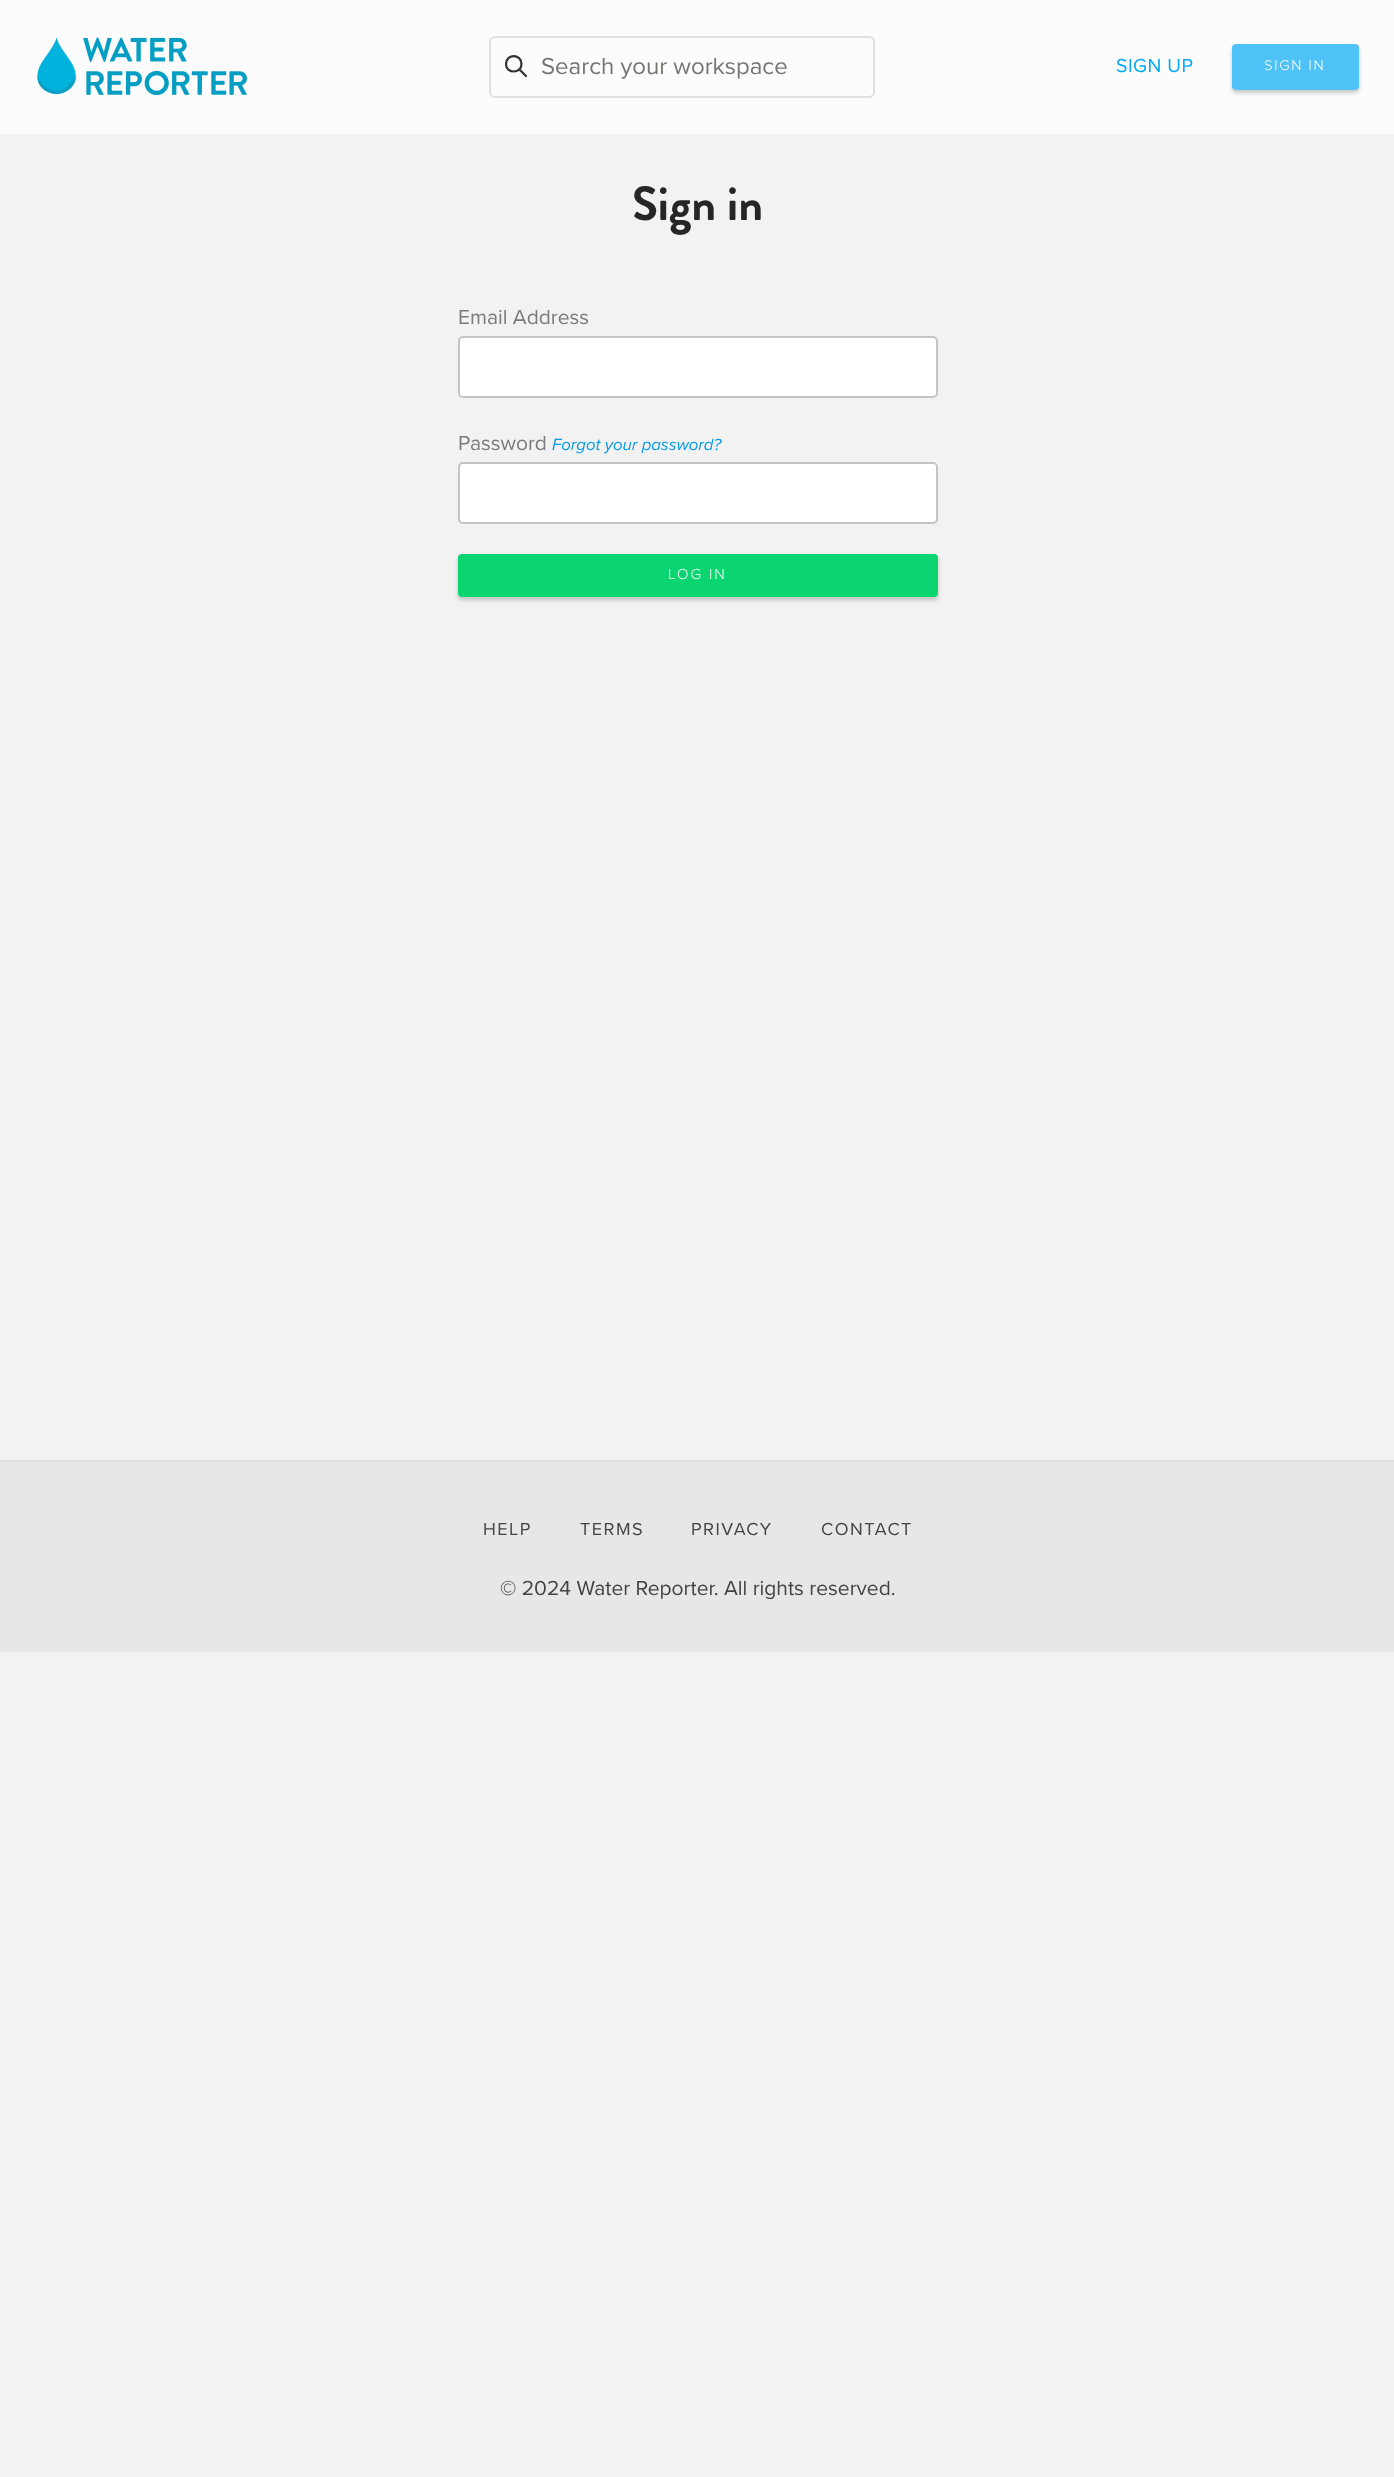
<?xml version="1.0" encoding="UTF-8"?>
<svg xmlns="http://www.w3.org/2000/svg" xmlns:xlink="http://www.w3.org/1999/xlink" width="1394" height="2477">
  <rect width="100%" height="100%" fill="#f2f2f2" />
  <rect width="1394" height="134" fill="#fcfcfc" />
  <image x="37" y="37" width="210" height="59" xlink:href="image1.png" />
  <rect x="490" y="37" width="384" height="60" rx="5" fill="none" stroke="#e0e0e0" stroke-width="2" />
  <path d="M 506 64 c 0 10 15.5 10 15.5 0 c 0 -10.5 -15.5 -10.5 -15.5 0 m 20 12 l -6.5 -6.5" fill="none" stroke="#333333" stroke-width="2.2" stroke-linecap="round" stroke-linejoin="round" />
  <rect x="1232" y="47" width="127" height="46" rx="4" fill="#000000" fill-opacity="0.2" filter="blur(2px)" />
  <rect x="1232" y="44" width="127" height="46" rx="4" fill="#4fc3f7" />
  <rect x="459" y="337" width="478" height="60" rx="4" fill="#ffffff" stroke="#c4c4c4" stroke-width="2" />
  <rect x="459" y="463" width="478" height="60" rx="4" fill="#ffffff" stroke="#c4c4c4" stroke-width="2" />
  <rect x="458" y="557" width="480" height="43" rx="4" fill="#000000" fill-opacity="0.2" filter="blur(2px)" />
  <rect x="458" y="554" width="480" height="43" rx="4" fill="#0ad570" />
  <rect y="1462" width="1394" height="190" fill="#e7e7e7" />
  <rect y="1460" width="1394" height="2" fill="#dddddd" />
  <text x="541" y="74" style="font-family: Proxima Nova; font-size: 24px; fill: #777571">Search your workspace</text>
  <text x="1116" y="72" style="font-family: Proxima Nova; font-size: 19.5px; letter-spacing: 0.5px; fill: #03a9f4">SIGN UP</text>
  <text x="1264" y="70" style="font-family: Proxima Nova; font-size: 14.5px; font-weight: 300; letter-spacing: 1.75px; fill: #ffffff">SIGN IN</text>
  <text x="632" y="220" style="font-family: Brandon Grotesque; font-size: 48px; font-weight: bold; fill: #262626">Sign in</text>
  <text x="458" y="324" style="font-family: Proxima Nova; font-size: 21px; fill: #797a7c">Email Address</text>
  <text x="458" y="450" style="font-family: Proxima Nova; font-size: 21px; fill: #797a7c">Password</text>
  <text x="552" y="450" style="font-family: Proxima Nova; font-size: 16.75px; font-style: italic; fill: #039be5">Forgot your password?</text>
  <text x="668" y="579" style="font-family: Proxima Nova; font-size: 15px; font-weight: 300; letter-spacing: 2px; fill: #ffffff">LOG IN</text>
  <text x="483" y="1535" style="font-family: Proxima Nova; font-size: 18px; letter-spacing: 1.5px; fill: #444444">HELP</text>
  <text x="580" y="1535" style="font-family: Proxima Nova; font-size: 18px; letter-spacing: 1.5px; fill: #444444">TERMS</text>
  <text x="691" y="1535" style="font-family: Proxima Nova; font-size: 18px; letter-spacing: 1.5px; fill: #444444">PRIVACY</text>
  <text x="821" y="1535" style="font-family: Proxima Nova; font-size: 18px; letter-spacing: 1.5px; fill: #444444">CONTACT</text>
  <text x="500" y="1595" style="font-family: Proxima Nova; font-size: 21px; fill: #444444">© 2024 Water Reporter. All rights reserved.</text>
</svg>
